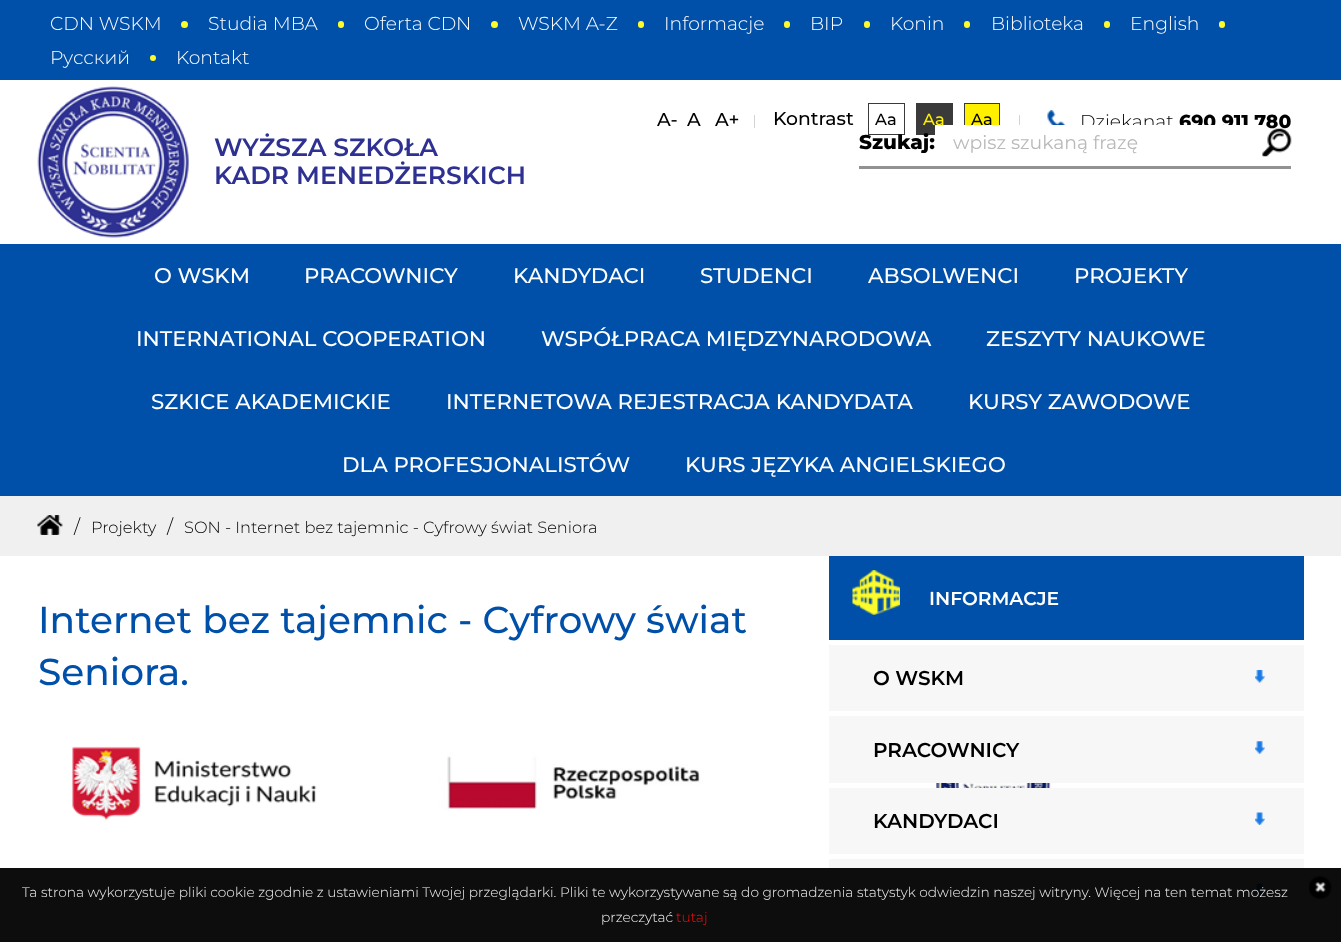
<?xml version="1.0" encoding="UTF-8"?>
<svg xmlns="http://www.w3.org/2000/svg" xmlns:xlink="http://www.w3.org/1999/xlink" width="1341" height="942">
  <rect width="100%" height="100%" fill="#ffffff" />
  <rect y="868" width="1341" height="74" fill="#0d0d0d" />
  <rect width="1341" height="80" fill="#0050aa" />
  <circle cx="184.5" cy="24.5" r="3.5" fill="#fdfb2a" />
  <rect x="338" y="21" width="6" height="7" rx="3" fill="#fdfb2a" />
  <circle cx="494.5" cy="24.5" r="3.5" fill="#fdfb2a" />
  <rect x="638" y="21" width="6" height="7" rx="3" fill="#fdfb2a" />
  <rect x="784" y="21" width="6" height="7" rx="3" fill="#fdfb2a" />
  <rect x="864" y="21" width="6" height="7" rx="3" fill="#fdfb2a" />
  <rect x="964" y="21" width="6" height="7" rx="3" fill="#fdfb2a" />
  <rect x="1104" y="21" width="6" height="7" rx="3" fill="#fdfb2a" />
  <rect x="1219" y="21" width="6" height="7" rx="3" fill="#fdfb2a" />
  <circle cx="153" cy="58" r="3" fill="#fdfb2a" />
  <rect x="754" y="115" width="1" height="13" fill="#d3d3d3" />
  <rect x="868.5" y="103.5" width="36" height="31" fill="none" stroke="#3a3a3a" />
  <rect x="916" y="103" width="37" height="32" fill="#3a3a3a" />
  <rect x="965" y="104" width="34" height="21" fill="#fff000" />
  <rect x="964.5" y="103.5" width="35" height="31" fill="none" stroke="#3a3a3a" />
  <rect x="1019" y="115" width="1" height="13" fill="#d3d3d3" />
  <image x="1047" y="110" width="18" height="15" xlink:href="image1.png" />
  <image x="37" y="86" width="152" height="152" xlink:href="image2.png" />
  <rect x="859" y="166" width="432" height="3" fill="#929292" />
  <rect y="244" width="1341" height="252" fill="#0050aa" />
  <rect y="496" width="1341" height="60" fill="#f0f0f0" />
  <image x="37" y="515" width="26" height="20" xlink:href="image4.png" />
  <image x="72" y="727" width="979" height="115" xlink:href="image5.png" />
  <rect x="829" y="556" width="475" height="84" fill="#0050aa" />
  <image x="852" y="570" width="48" height="45" xlink:href="image6.png" />
  <rect x="829" y="645" width="475" height="66" fill="#f7f7f7" />
  <image x="1255" y="670" width="10" height="13" xlink:href="image7.png" />
  <rect x="829" y="716" width="475" height="67" fill="#f7f7f7" />
  <image x="1255" y="741" width="10" height="13" xlink:href="image8.png" />
  <rect x="829" y="788" width="475" height="66" fill="#f7f7f7" />
  <image x="1255" y="812" width="10" height="13" xlink:href="image9.png" />
  <rect x="829" y="859" width="475" height="9" fill="#f7f7f7" />
  <image x="1255" y="883" width="10" height="14" xlink:href="image10.png" />
  <image x="1309" y="876" width="23" height="23" xlink:href="image11.png" />
  <text x="50" y="30" style="font-family: Montserrat; font-size: 18.75px; font-weight: 300; fill: #ffffff">CDN WSKM</text>
  <text x="208" y="30" style="font-family: Montserrat; font-size: 18.75px; font-weight: 300; fill: #ffffff">Studia MBA</text>
  <text x="364" y="30" style="font-family: Montserrat; font-size: 18.75px; font-weight: 300; fill: #ffffff">Oferta CDN</text>
  <text x="518" y="30" style="font-family: Montserrat; font-size: 18.75px; font-weight: 300; fill: #ffffff">WSKM A-Z</text>
  <text x="664" y="30" style="font-family: Montserrat; font-size: 18.75px; font-weight: 300; fill: #ffffff">Informacje</text>
  <text x="810" y="30" style="font-family: Montserrat; font-size: 18.75px; font-weight: 300; fill: #ffffff">BIP</text>
  <text x="890" y="30" style="font-family: Montserrat; font-size: 18.75px; font-weight: 300; fill: #ffffff">Konin</text>
  <text x="991" y="30" style="font-family: Montserrat; font-size: 18.75px; font-weight: 300; fill: #ffffff">Biblioteka</text>
  <text x="1130" y="30" style="font-family: Montserrat; font-size: 18.75px; font-weight: 300; fill: #ffffff">English</text>
  <text x="50" y="64" style="font-family: Montserrat; font-size: 18.75px; font-weight: 300; fill: #ffffff">Русский</text>
  <text x="176" y="64" style="font-family: Montserrat; font-size: 18.75px; font-weight: 300; fill: #ffffff">Kontakt</text>
  <text x="657" y="126" style="font-family: Montserrat; font-size: 18.75px; font-weight: 500; fill: #000000">A-</text>
  <text x="687" y="126" style="font-family: Montserrat; font-size: 18.75px; font-weight: 500; fill: #000000">A</text>
  <text x="715" y="126" style="font-family: Montserrat; font-size: 18.75px; font-weight: 500; fill: #000000">A+</text>
  <text x="773" y="125" style="font-family: Montserrat; font-size: 18.75px; font-weight: 500; fill: #000000">Kontrast</text>
  <text x="875" y="125" style="font-family: Montserrat; font-size: 16.25px; font-weight: 500; fill: #000000">Aa</text>
  <text x="923" y="125" style="font-family: Montserrat; font-size: 16.25px; font-weight: 500; fill: #fff000">Aa</text>
  <text x="971" y="125" style="font-family: Montserrat; font-size: 16.25px; font-weight: 500; fill: #000000">Aa</text>
  <text x="1080" y="128" style="font-family: Montserrat; font-size: 18.75px; font-weight: 300; fill: #000000">Dziekanat</text>
  <text x="1179" y="128" style="font-family: Montserrat; font-size: 18.75px; font-weight: 800; fill: #000000">690 911 780</text>
  <text x="214" y="156" style="font-family: Montserrat; font-size: 25px; font-weight: 600; fill: #2e3192">WYŻSZA SZKOŁA</text>
  <text x="214" y="184" style="font-family: Montserrat; font-size: 25px; font-weight: 600; fill: #2e3192">KADR MENEDŻERSKICH</text>
  <text x="859" y="149" style="font-family: Montserrat; font-size: 20px; font-weight: 800; fill: #000000">Szukaj:</text>
  <rect x="935" y="125" width="328" height="10" fill="#ffffff" />
  <text x="953" y="149" style="font-family: Montserrat; font-size: 18.75px; fill: #bab8b8">wpisz szukaną frazę</text>
  <image x="1262" y="128" width="30" height="29" xlink:href="image3.png" />
  <text x="154" y="283" style="font-family: Montserrat; font-size: 21.25px; font-weight: 500; fill: #ffffff">O WSKM</text>
  <text x="304" y="283" style="font-family: Montserrat; font-size: 21.25px; font-weight: 500; fill: #ffffff">PRACOWNICY</text>
  <text x="513" y="283" style="font-family: Montserrat; font-size: 21.25px; font-weight: 500; fill: #ffffff">KANDYDACI</text>
  <text x="700" y="283" style="font-family: Montserrat; font-size: 21.25px; font-weight: 500; fill: #ffffff">STUDENCI</text>
  <text x="868" y="283" style="font-family: Montserrat; font-size: 21.25px; font-weight: 500; fill: #ffffff">ABSOLWENCI</text>
  <text x="1074" y="283" style="font-family: Montserrat; font-size: 21.25px; font-weight: 500; fill: #ffffff">PROJEKTY</text>
  <text x="136" y="346" style="font-family: Montserrat; font-size: 21.25px; font-weight: 500; fill: #ffffff">INTERNATIONAL COOPERATION</text>
  <text x="541" y="346" style="font-family: Montserrat; font-size: 21.25px; font-weight: 500; fill: #ffffff">WSPÓŁPRACA MIĘDZYNARODOWA</text>
  <text x="986" y="346" style="font-family: Montserrat; font-size: 21.25px; font-weight: 500; fill: #ffffff">ZESZYTY NAUKOWE</text>
  <text x="151" y="409" style="font-family: Montserrat; font-size: 21.25px; font-weight: 500; fill: #ffffff">SZKICE AKADEMICKIE</text>
  <text x="446" y="409" style="font-family: Montserrat; font-size: 21.25px; font-weight: 500; fill: #ffffff">INTERNETOWA REJESTRACJA KANDYDATA</text>
  <text x="968" y="409" style="font-family: Montserrat; font-size: 21.25px; font-weight: 500; fill: #ffffff">KURSY ZAWODOWE</text>
  <text x="342" y="472" style="font-family: Montserrat; font-size: 21.25px; font-weight: 500; fill: #ffffff">DLA PROFESJONALISTÓW</text>
  <text x="685" y="472" style="font-family: Montserrat; font-size: 21.25px; font-weight: 500; fill: #ffffff">KURS JĘZYKA ANGIELSKIEGO</text>
  <text x="74" y="533" style="font-family: Montserrat; font-size: 18.75px; font-weight: 300; fill: #000000">/</text>
  <text x="91" y="533" style="font-family: Montserrat; font-size: 16.25px; font-weight: 300; fill: #000000">Projekty</text>
  <text x="167" y="533" style="font-family: Montserrat; font-size: 18.75px; font-weight: 300; fill: #000000">/</text>
  <text x="184" y="533" style="font-family: Montserrat; font-size: 16.25px; font-weight: 300; fill: #000000">SON - Internet bez tajemnic - Cyfrowy świat Seniora</text>
  <text x="38" y="633" style="font-family: Montserrat; font-size: 37.5px; font-weight: 500; fill: #0050aa">Internet bez tajemnic - Cyfrowy świat</text>
  <text x="38" y="685" style="font-family: Montserrat; font-size: 37.5px; font-weight: 500; fill: #0050aa">Seniora.</text>
  <text x="929" y="605" style="font-family: Montserrat; font-size: 18.75px; font-weight: 600; fill: #ffffff">INFORMACJE</text>
  <text x="873" y="685" style="font-family: Montserrat; font-size: 20px; font-weight: 600; fill: #000000">O WSKM</text>
  <text x="873" y="757" style="font-family: Montserrat; font-size: 20px; font-weight: 600; fill: #000000">PRACOWNICY</text>
  <text x="873" y="828" style="font-family: Montserrat; font-size: 20px; font-weight: 600; fill: #000000">KANDYDACI</text>
  <text x="22" y="897" style="font-family: Montserrat; font-size: 13.75px; font-weight: 300; fill: #f3f3f3">Ta strona wykorzystuje pliki cookie zgodnie z ustawieniami Twojej przeglądarki. Pliki te wykorzystywane są do gromadzenia statystyk odwiedzin naszej witryny. Więcej na ten temat możesz</text>
  <text x="601" y="922" style="font-family: Montserrat; font-size: 13.75px; font-weight: 300; fill: #f3f3f3">przeczytać</text>
  <text x="676" y="922" style="font-family: Montserrat; font-size: 13.75px; font-weight: 300; fill: #ff0d0d">tutaj</text>
</svg>
